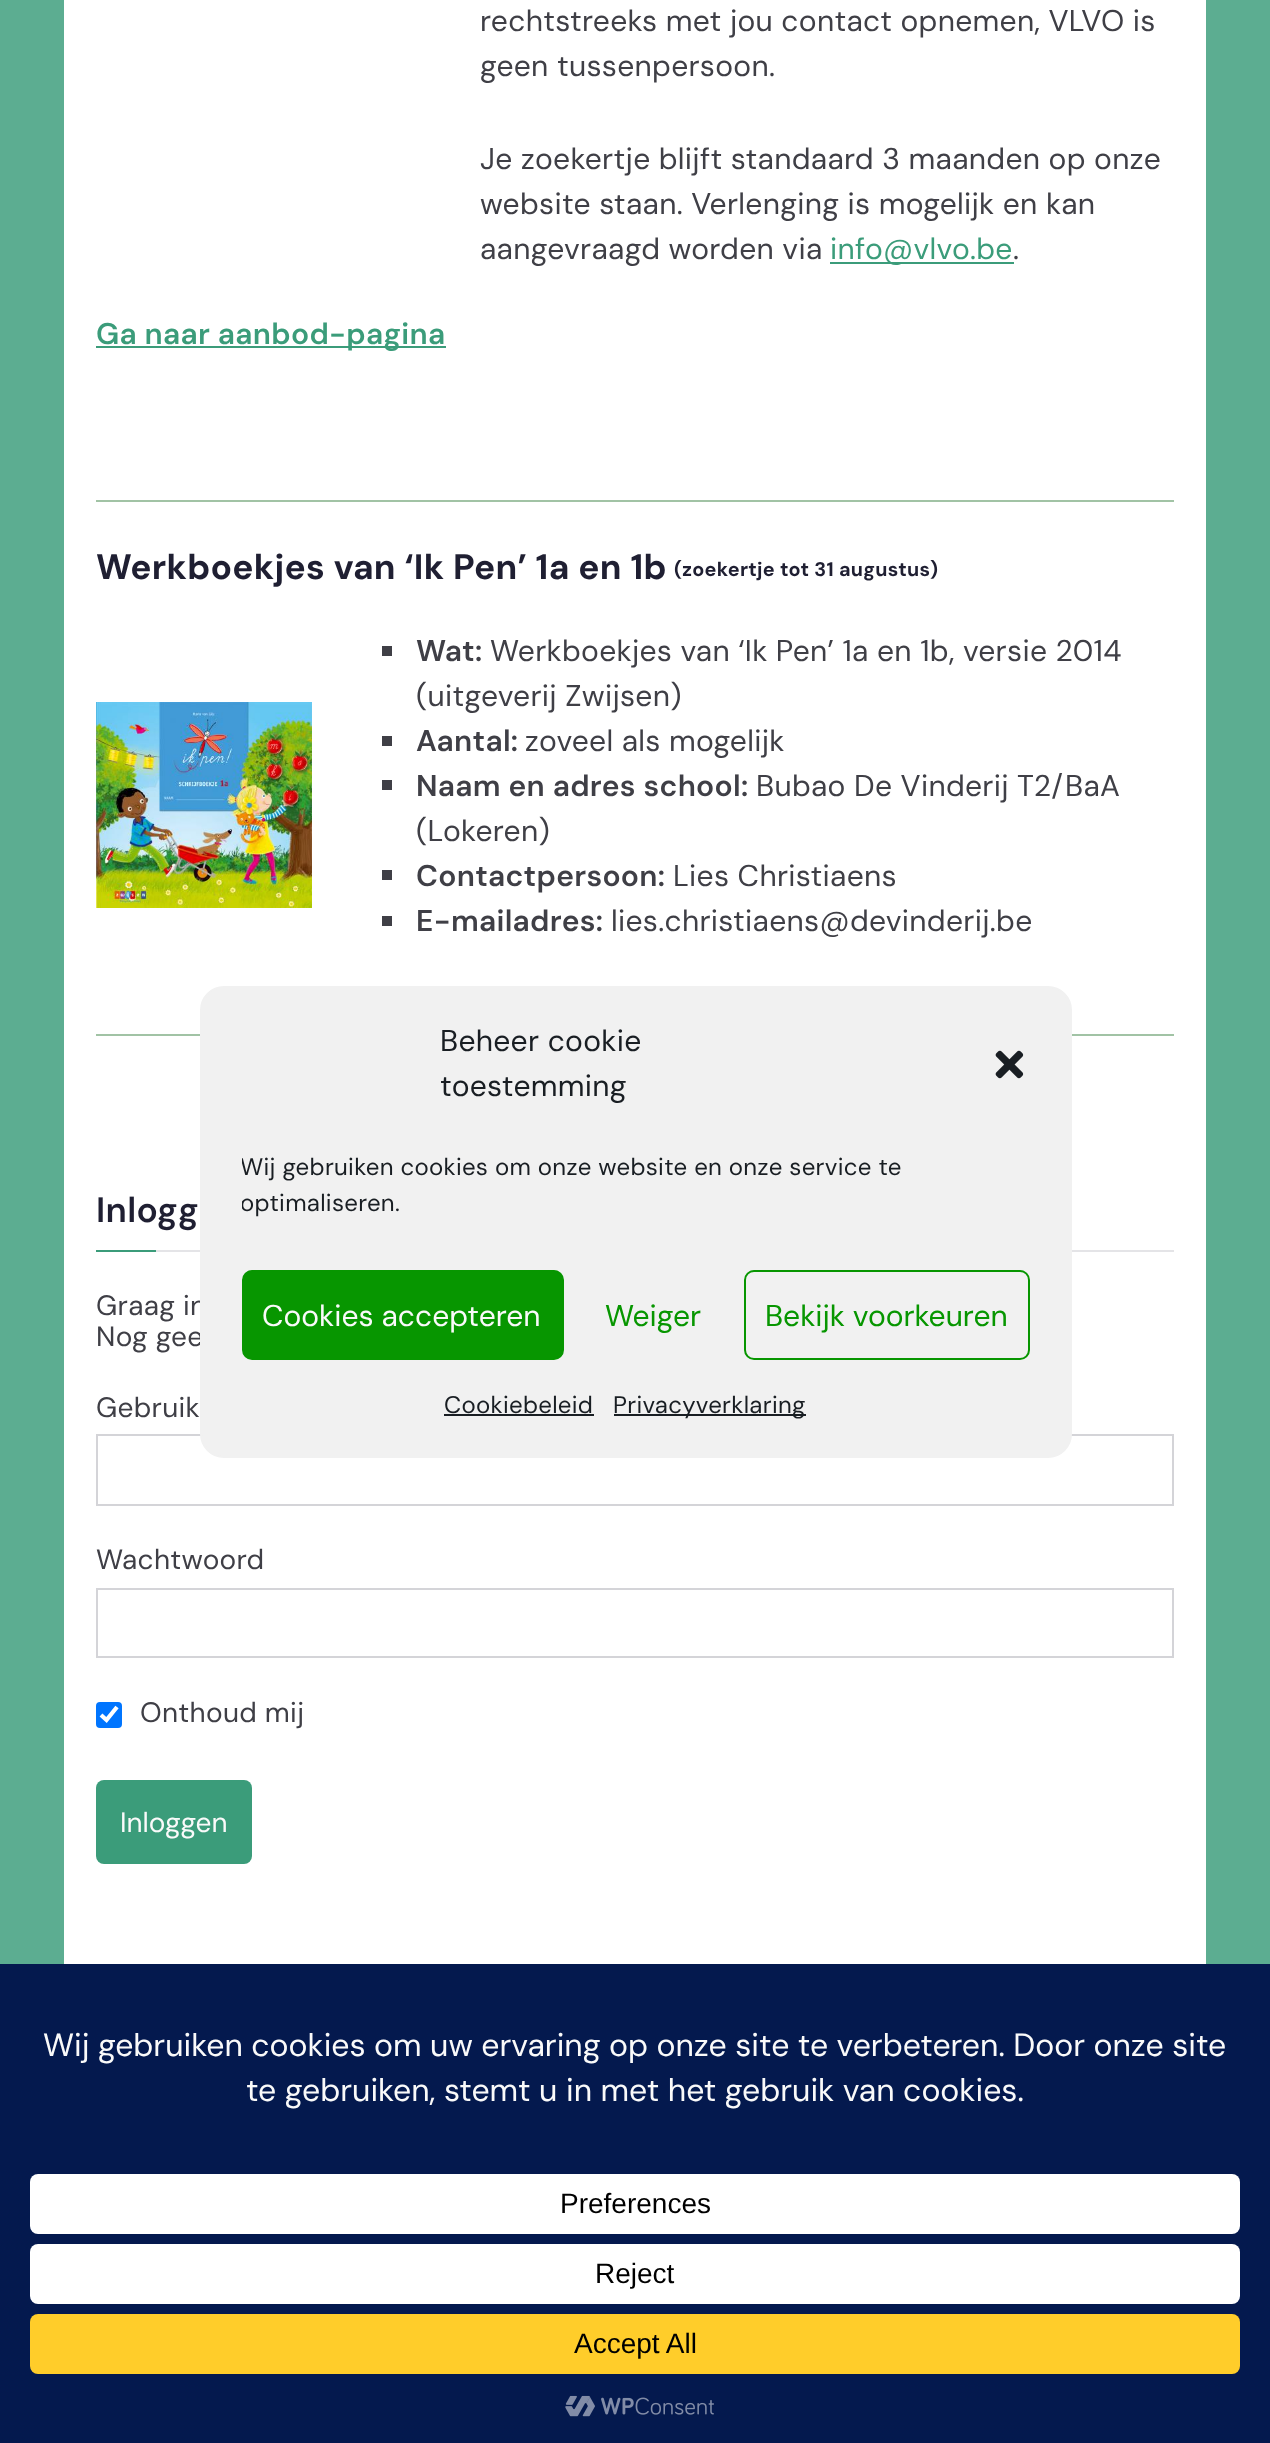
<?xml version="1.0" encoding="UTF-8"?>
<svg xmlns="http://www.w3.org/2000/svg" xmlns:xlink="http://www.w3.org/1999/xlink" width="1270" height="2443">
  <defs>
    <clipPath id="clip1"><rect x="242" y="1148" width="788" height="82" /></clipPath>
  </defs>
  <rect width="100%" height="100%" fill="#5cad91" />
  <rect x="64" width="1142" height="1964" fill="#ffffff" />
  <rect x="830" y="262" width="184" height="2" fill="#3b9c7a" />
  <rect x="96" y="346" width="350" height="2" fill="#3b9c7a" />
  <rect x="96" y="500" width="1078" height="2" fill="#a1c3a5" />
  <image x="96" y="702" width="216" height="206" xlink:href="image1.png" />
  <rect x="382" y="646" width="10" height="10" fill="#3f3f46" />
  <rect x="382" y="736" width="10" height="10" fill="#3f3f46" />
  <rect x="382" y="780" width="10" height="10" fill="#3f3f46" />
  <rect x="382" y="870" width="10" height="10" fill="#3f3f46" />
  <rect x="382" y="916" width="10" height="10" fill="#3f3f46" />
  <rect x="96" y="1034" width="1078" height="2" fill="#a1c3a5" />
  <rect x="156" y="1250" width="1018" height="2" fill="#e4e4e7" />
  <rect x="96" y="1250" width="60" height="2" fill="#3b9c7a" />
  <rect x="97" y="1435" width="1076" height="70" fill="none" stroke="#d4d4d8" stroke-width="2" />
  <rect x="97" y="1589" width="1076" height="68" fill="none" stroke="#d4d4d8" stroke-width="2" />
  <rect x="96" y="1702" width="26" height="26" rx="4" fill="#0075ff" />
  <path d="M 101 1715 l 5.5 5 l 10.5 -13" fill="none" stroke="#ffffff" stroke-width="4.2" />
  <rect x="96" y="1780" width="156" height="84" rx="8" fill="#3b9c7a" />
  <rect y="1964" width="1270" height="479" fill="#04194e" />
  <rect x="30" y="2174" width="1210" height="60" rx="8" fill="#ffffff" />
  <rect x="30" y="2244" width="1210" height="60" rx="8" fill="#ffffff" />
  <rect x="30" y="2314" width="1210" height="60" rx="8" fill="#ffcd2a" />
  <image x="565" y="2395" width="149" height="22" xlink:href="image3.png" />
  <text x="480" y="31" style="font-family: DM Sans; font-size: 30px; letter-spacing: 0.3px; fill: #3f3f46">rechtstreeks met jou contact opnemen, VLVO is</text>
  <text x="480" y="76" style="font-family: DM Sans; font-size: 30px; letter-spacing: 0.3px; fill: #3f3f46">geen tussenpersoon.</text>
  <text x="480" y="169" style="font-family: DM Sans; font-size: 30px; letter-spacing: 0.3px; fill: #3f3f46">Je zoekertje blijft standaard 3 maanden op onze</text>
  <text x="480" y="214" style="font-family: DM Sans; font-size: 30px; letter-spacing: 0.3px; fill: #3f3f46">website staan. Verlenging is mogelijk en kan</text>
  <text x="480" y="259" style="font-family: DM Sans; font-size: 30px; letter-spacing: 0.3px; fill: #3f3f46">aangevraagd worden via</text>
  <text x="830" y="259" style="font-family: DM Sans; font-size: 30px; letter-spacing: 0.3px; fill: #3b9c7a">info@vlvo.be</text>
  <text x="1013" y="259" style="font-family: DM Sans; font-size: 30px; letter-spacing: 0.3px; fill: #3f3f46">.</text>
  <text x="96" y="344" style="font-family: DM Sans; font-size: 30px; font-weight: 600; letter-spacing: 0.3px; fill: #3b9c7a">Ga naar aanbod-pagina</text>
  <text x="96" y="579" style="font-family: DM Sans; font-size: 35.25px; font-weight: bold; letter-spacing: 0.3px; fill: #1f1f32">Werkboekjes van ‘Ik Pen’ 1a en 1b</text>
  <text x="674" y="576" style="font-family: DM Sans; font-size: 19.75px; font-weight: bold; letter-spacing: 0.3px; fill: #1f1f32">(zoekertje tot 31 augustus)</text>
  <text x="416" y="661" style="font-family: DM Sans; font-size: 30px; font-weight: 600; letter-spacing: 0.3px; fill: #3f3f46">Wat:</text>
  <text x="490" y="661" style="font-family: DM Sans; font-size: 30px; letter-spacing: 0.3px; fill: #3f3f46">Werkboekjes van ‘Ik Pen’ 1a en 1b, versie 2014</text>
  <text x="416" y="706" style="font-family: DM Sans; font-size: 30px; letter-spacing: 0.3px; fill: #3f3f46">(uitgeverij Zwijsen)</text>
  <text x="416" y="751" style="font-family: DM Sans; font-size: 30px; font-weight: 600; letter-spacing: 0.3px; fill: #3f3f46">Aantal:</text>
  <text x="525" y="751" style="font-family: DM Sans; font-size: 30px; letter-spacing: 0.3px; fill: #3f3f46">zoveel als mogelijk</text>
  <text x="416" y="796" style="font-family: DM Sans; font-size: 30px; font-weight: 600; letter-spacing: 0.3px; fill: #3f3f46">Naam en adres school:</text>
  <text x="756" y="796" style="font-family: DM Sans; font-size: 30px; letter-spacing: 0.3px; fill: #3f3f46">Bubao De Vinderij T2/BaA</text>
  <text x="416" y="841" style="font-family: DM Sans; font-size: 30px; letter-spacing: 0.3px; fill: #3f3f46">(Lokeren)</text>
  <text x="416" y="886" style="font-family: DM Sans; font-size: 30px; font-weight: 600; letter-spacing: 0.3px; fill: #3f3f46">Contactpersoon:</text>
  <text x="673" y="886" style="font-family: DM Sans; font-size: 30px; letter-spacing: 0.3px; fill: #3f3f46">Lies Christiaens</text>
  <text x="416" y="931" style="font-family: DM Sans; font-size: 30px; font-weight: 600; letter-spacing: 0.3px; fill: #3f3f46">E-mailadres:</text>
  <text x="611" y="931" style="font-family: DM Sans; font-size: 30px; letter-spacing: 0.3px; fill: #3f3f46">lies.christiaens@devinderij.be</text>
  <text x="96" y="1222" style="font-family: DM Sans; font-size: 35.25px; font-weight: 600; letter-spacing: 0.3px; fill: #1f1f32">Inlogg</text>
  <text x="96" y="1315" style="font-family: DM Sans; font-size: 28px; letter-spacing: 0.3px; fill: #3f3f46">Graag in</text>
  <text x="96" y="1346" style="font-family: DM Sans; font-size: 28px; letter-spacing: 0.3px; fill: #3f3f46">Nog gee</text>
  <text x="96" y="1417" style="font-family: DM Sans; font-size: 28px; letter-spacing: 0.3px; fill: #3f3f46">Gebruik</text>
  <text x="96" y="1569" style="font-family: DM Sans; font-size: 28px; letter-spacing: 0.3px; fill: #3f3f46">Wachtwoord</text>
  <text x="140" y="1722" style="font-family: DM Sans; font-size: 28px; letter-spacing: 0.3px; fill: #3f3f46">Onthoud mij</text>
  <text x="120" y="1832" style="font-family: DM Sans; font-size: 28px; fill: #fafafa">Inloggen</text>
  <rect x="201" y="987" width="870" height="470" rx="23" fill="#f1f1f1" stroke="#f1f1f1" stroke-width="2" />
  <text x="440" y="1051" style="font-family: DM Sans; font-size: 30px; letter-spacing: 0.3px; fill: #191e23">Beheer cookie</text>
  <text x="440" y="1096" style="font-family: DM Sans; font-size: 30px; letter-spacing: 0.3px; fill: #191e23">toestemming</text>
  <image x="995" y="1050" width="29" height="29" xlink:href="image2.png" />
  <g clip-path="url(#clip1)">
    <text x="240" y="1175" style="font-family: DM Sans; font-size: 24px; letter-spacing: 0.3px; fill: #191e23">Wij gebruiken cookies om onze website en onze service te</text>
    <text x="240" y="1211" style="font-family: DM Sans; font-size: 24px; letter-spacing: 0.3px; fill: #191e23">optimaliseren.</text>
  </g>
  <rect x="243" y="1271" width="320" height="88" rx="9" fill="#079600" stroke="#079600" stroke-width="2" />
  <text x="262" y="1326" style="font-family: DM Sans; font-size: 30px; fill: #fafafa">Cookies accepteren</text>
  <text x="605" y="1326" style="font-family: DM Sans; font-size: 30px; fill: #079600">Weiger</text>
  <rect x="745" y="1271" width="284" height="88" rx="9" fill="none" stroke="#079600" stroke-width="2" />
  <text x="765" y="1326" style="font-family: DM Sans; font-size: 30px; fill: #079600">Bekijk voorkeuren</text>
  <text x="444" y="1413" style="font-family: DM Sans; font-size: 24px; letter-spacing: 0.3px; fill: #191e23">Cookiebeleid</text>
  <rect x="444" y="1414" width="150" height="2" fill="#191e23" />
  <rect x="614" y="1414" width="192" height="2" fill="#191e23" />
  <text x="613" y="1413" style="font-family: DM Sans; font-size: 24px; letter-spacing: 0.3px; fill: #191e23">Privacyverklaring</text>
  <text x="43" y="2056" style="font-family: DM Sans; font-size: 32px; fill: #fafafa">Wij gebruiken cookies om uw ervaring op onze site te verbeteren. Door onze site</text>
  <text x="246" y="2101" style="font-family: DM Sans; font-size: 32px; fill: #fafafa">te gebruiken, stemt u in met het gebruik van cookies.</text>
  <text x="560" y="2213" style="font-family: Liberation Sans; font-size: 28px; fill: #000000">Preferences</text>
  <text x="595" y="2283" style="font-family: Liberation Sans; font-size: 28px; fill: #000000">Reject</text>
  <text x="574" y="2353" style="font-family: Liberation Sans; font-size: 28px; fill: #000000">Accept All</text>
</svg>
